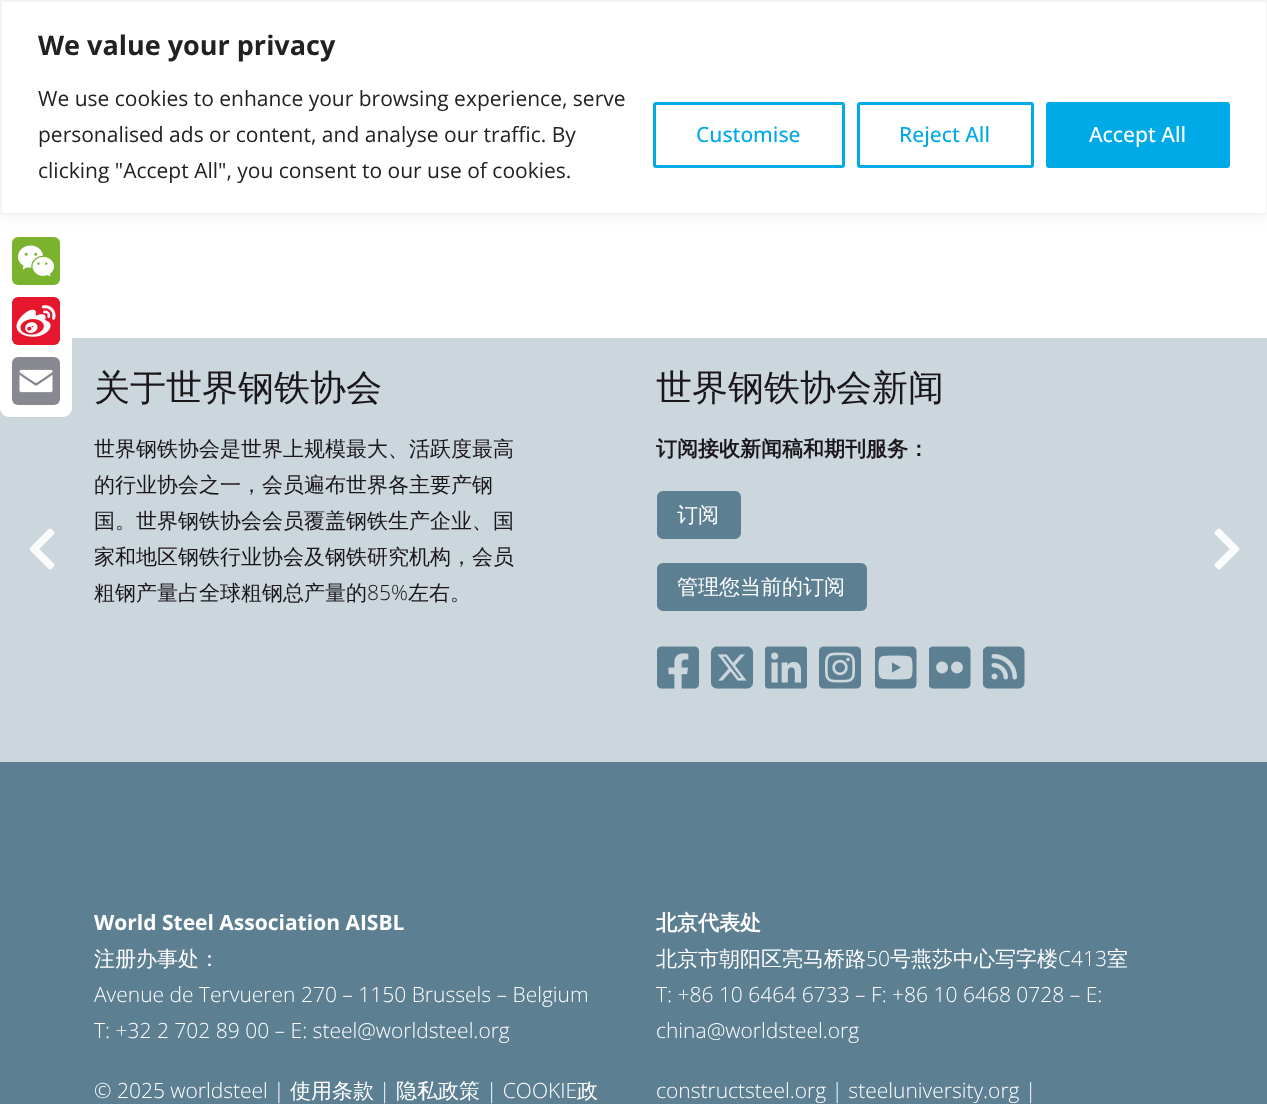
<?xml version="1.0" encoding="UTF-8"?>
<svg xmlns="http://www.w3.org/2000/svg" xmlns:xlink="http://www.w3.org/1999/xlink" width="1267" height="1104">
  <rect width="100%" height="100%" fill="#ffffff" />
  <rect y="338" width="1267" height="424" fill="#ccd6dd" />
  <rect y="225" width="72" height="192" rx="9" fill="#ffffff" />
  <rect y="-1" width="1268" height="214" fill="#acabab" fill-opacity="0.3" filter="blur(7.5px)" />
  <rect x="1" y="1" width="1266" height="213" fill="#ffffff" stroke="#f4f4f4" stroke-width="2" />
  <rect x="654.5" y="103.5" width="189" height="63" rx="1.5" fill="none" stroke="#00aae7" stroke-width="3" />
  <rect x="858.5" y="103.5" width="174" height="63" rx="1.5" fill="none" stroke="#00aae7" stroke-width="3" />
  <rect x="1047.5" y="103.5" width="181" height="63" rx="1.5" fill="#00aae7" stroke="#00aae7" stroke-width="3" />
  <rect x="12" y="237" width="48" height="48" rx="6" fill="#7bb32e" />
  <image x="18" y="245" width="36" height="32" xlink:href="image1.png" />
  <rect x="12" y="297" width="48" height="48" rx="6" fill="#e6162d" />
  <image x="16" y="305" width="40" height="32" xlink:href="image2.png" />
  <rect x="12" y="357" width="48" height="48" rx="6" fill="#888990" />
  <image x="19" y="369" width="34" height="24" xlink:href="image3.png" />
  <rect x="658.5" y="492.5" width="81" height="45" rx="4.5" fill="#5c7f92" stroke="#5c7f92" stroke-width="3" />
  <rect x="658.5" y="564.5" width="207" height="45" rx="4.5" fill="#5c7f92" stroke="#5c7f92" stroke-width="3" />
  <image x="657" y="646" width="42" height="43" xlink:href="image4.png" />
  <image x="711" y="646" width="42" height="43" xlink:href="image5.png" />
  <image x="765" y="646" width="42" height="43" xlink:href="image6.png" />
  <image x="819" y="646" width="42" height="43" xlink:href="image7.png" />
  <image x="875" y="646" width="42" height="43" xlink:href="image8.png" />
  <image x="929" y="646" width="42" height="43" xlink:href="image9.png" />
  <image x="983" y="646" width="42" height="43" xlink:href="image10.png" />
  <image x="29" y="528" width="26" height="42" xlink:href="image11.png" />
  <image x="1214" y="528" width="26" height="42" xlink:href="image12.png" />
  <rect y="762" width="1267" height="342" fill="#5c7f92" />
  <text x="38" y="55" style="font-family: Open Sans; font-size: 27px; font-weight: bold; fill: #212121">We value your privacy</text>
  <text x="38" y="106" style="font-family: Open Sans; font-size: 21px; fill: #212121">We use cookies to enhance your browsing experience, serve</text>
  <text x="38" y="142" style="font-family: Open Sans; font-size: 21px; fill: #212121">personalised ads or content, and analyse our traffic. By</text>
  <text x="38" y="178" style="font-family: Open Sans; font-size: 21px; fill: #212121">clicking "Accept All", you consent to our use of cookies.</text>
  <text x="696" y="142" style="font-family: Open Sans; font-size: 21px; font-weight: 500; fill: #00aae7">Customise</text>
  <text x="899" y="142" style="font-family: Open Sans; font-size: 21px; font-weight: 500; fill: #00aae7">Reject All</text>
  <text x="1089" y="142" style="font-family: Open Sans; font-size: 21px; font-weight: 500; fill: #ffffff">Accept All</text>
  <text x="94" y="400" style="font-family: WenQuanYi Zen Hei; font-size: 36px; font-weight: 500; fill: #1a171b">关于世界钢铁协会</text>
  <text x="94" y="456" style="font-family: WenQuanYi Zen Hei; font-size: 21px; font-weight: 500; fill: #1a171b">世界钢铁协会是世界上规模最大、活跃度最高</text>
  <text x="94" y="492" style="font-family: WenQuanYi Zen Hei; font-size: 21px; font-weight: 500; fill: #1a171b">的行业协会之一，会员遍布世界各主要产钢</text>
  <text x="94" y="528" style="font-family: WenQuanYi Zen Hei; font-size: 21px; font-weight: 500; fill: #1a171b">国。世界钢铁协会会员覆盖钢铁生产企业、国</text>
  <text x="94" y="564" style="font-family: WenQuanYi Zen Hei; font-size: 21px; font-weight: 500; fill: #1a171b">家和地区钢铁行业协会及钢铁研究机构，会员</text>
  <text x="94" y="600" style="font-family: WenQuanYi Zen Hei; font-size: 21px; font-weight: 500; fill: #1a171b">粗钢产量占全球粗钢总产量的</text>
  <text x="367" y="600" style="font-family: Open Sans; font-size: 21px; font-weight: 300; fill: #1a171b">85%</text>
  <text x="408" y="600" style="font-family: WenQuanYi Zen Hei; font-size: 21px; font-weight: 500; fill: #1a171b">左右。</text>
  <text x="656" y="400" style="font-family: WenQuanYi Zen Hei; font-size: 36px; font-weight: 500; fill: #1a171b">世界钢铁协会新闻</text>
  <text x="656" y="456" style="font-family: WenQuanYi Zen Hei; font-size: 21px; font-weight: bold; fill: #1a171b">订阅接收新闻稿和期刊服务：</text>
  <text x="677" y="522" style="font-family: WenQuanYi Zen Hei; font-size: 21px; font-weight: 500; fill: #ffffff">订阅</text>
  <text x="677" y="594" style="font-family: WenQuanYi Zen Hei; font-size: 21px; font-weight: 500; fill: #ffffff">管理您当前的订阅</text>
  <text x="94" y="930" style="font-family: Open Sans; font-size: 21px; font-weight: bold; fill: #ffffff">World Steel Association AISBL</text>
  <text x="94" y="966" style="font-family: WenQuanYi Zen Hei; font-size: 21px; font-weight: 500; fill: #ffffff">注册办事处：</text>
  <text x="94" y="1002" style="font-family: Open Sans; font-size: 21px; font-weight: 300; fill: #ffffff">Avenue de Tervueren 270 – 1150 Brussels – Belgium</text>
  <text x="94" y="1038" style="font-family: Open Sans; font-size: 21px; font-weight: 300; fill: #ffffff">T: +32 2 702 89 00 – E: steel@worldsteel.org</text>
  <text x="656" y="930" style="font-family: WenQuanYi Zen Hei; font-size: 21px; font-weight: bold; fill: #ffffff">北京代表处</text>
  <text x="656" y="966" style="font-family: WenQuanYi Zen Hei; font-size: 21px; font-weight: 500; fill: #ffffff">北京市朝阳区亮马桥路</text>
  <text x="866" y="966" style="font-family: Open Sans; font-size: 21px; font-weight: 300; fill: #ffffff">50</text>
  <text x="890" y="966" style="font-family: WenQuanYi Zen Hei; font-size: 21px; font-weight: 500; fill: #ffffff">号燕莎中心写字楼</text>
  <text x="1058" y="966" style="font-family: Open Sans; font-size: 21px; font-weight: 300; fill: #ffffff">C413</text>
  <text x="1107" y="966" style="font-family: WenQuanYi Zen Hei; font-size: 21px; font-weight: 500; fill: #ffffff">室</text>
  <text x="656" y="1002" style="font-family: Open Sans; font-size: 21px; font-weight: 300; fill: #ffffff">T: +86 10 6464 6733 – F: +86 10 6468 0728 – E:</text>
  <text x="656" y="1038" style="font-family: Open Sans; font-size: 21px; font-weight: 300; fill: #ffffff">china@worldsteel.org</text>
  <text x="94" y="1098" style="font-family: Open Sans; font-size: 21px; font-weight: 300; fill: #ffffff">© 2025 worldsteel |</text>
  <text x="290" y="1098" style="font-family: WenQuanYi Zen Hei; font-size: 21px; font-weight: 500; fill: #ffffff">使用条款</text>
  <text x="379" y="1098" style="font-family: Open Sans; font-size: 21px; font-weight: 300; fill: #ffffff">|</text>
  <text x="396" y="1098" style="font-family: WenQuanYi Zen Hei; font-size: 21px; font-weight: 500; fill: #ffffff">隐私政策</text>
  <text x="486" y="1098" style="font-family: Open Sans; font-size: 21px; font-weight: 300; fill: #ffffff">| COOKIE</text>
  <text x="577" y="1098" style="font-family: WenQuanYi Zen Hei; font-size: 21px; font-weight: 500; fill: #ffffff">政</text>
  <text x="656" y="1098" style="font-family: Open Sans; font-size: 21px; font-weight: 300; fill: #ffffff">constructsteel.org | steeluniversity.org |</text>
</svg>
